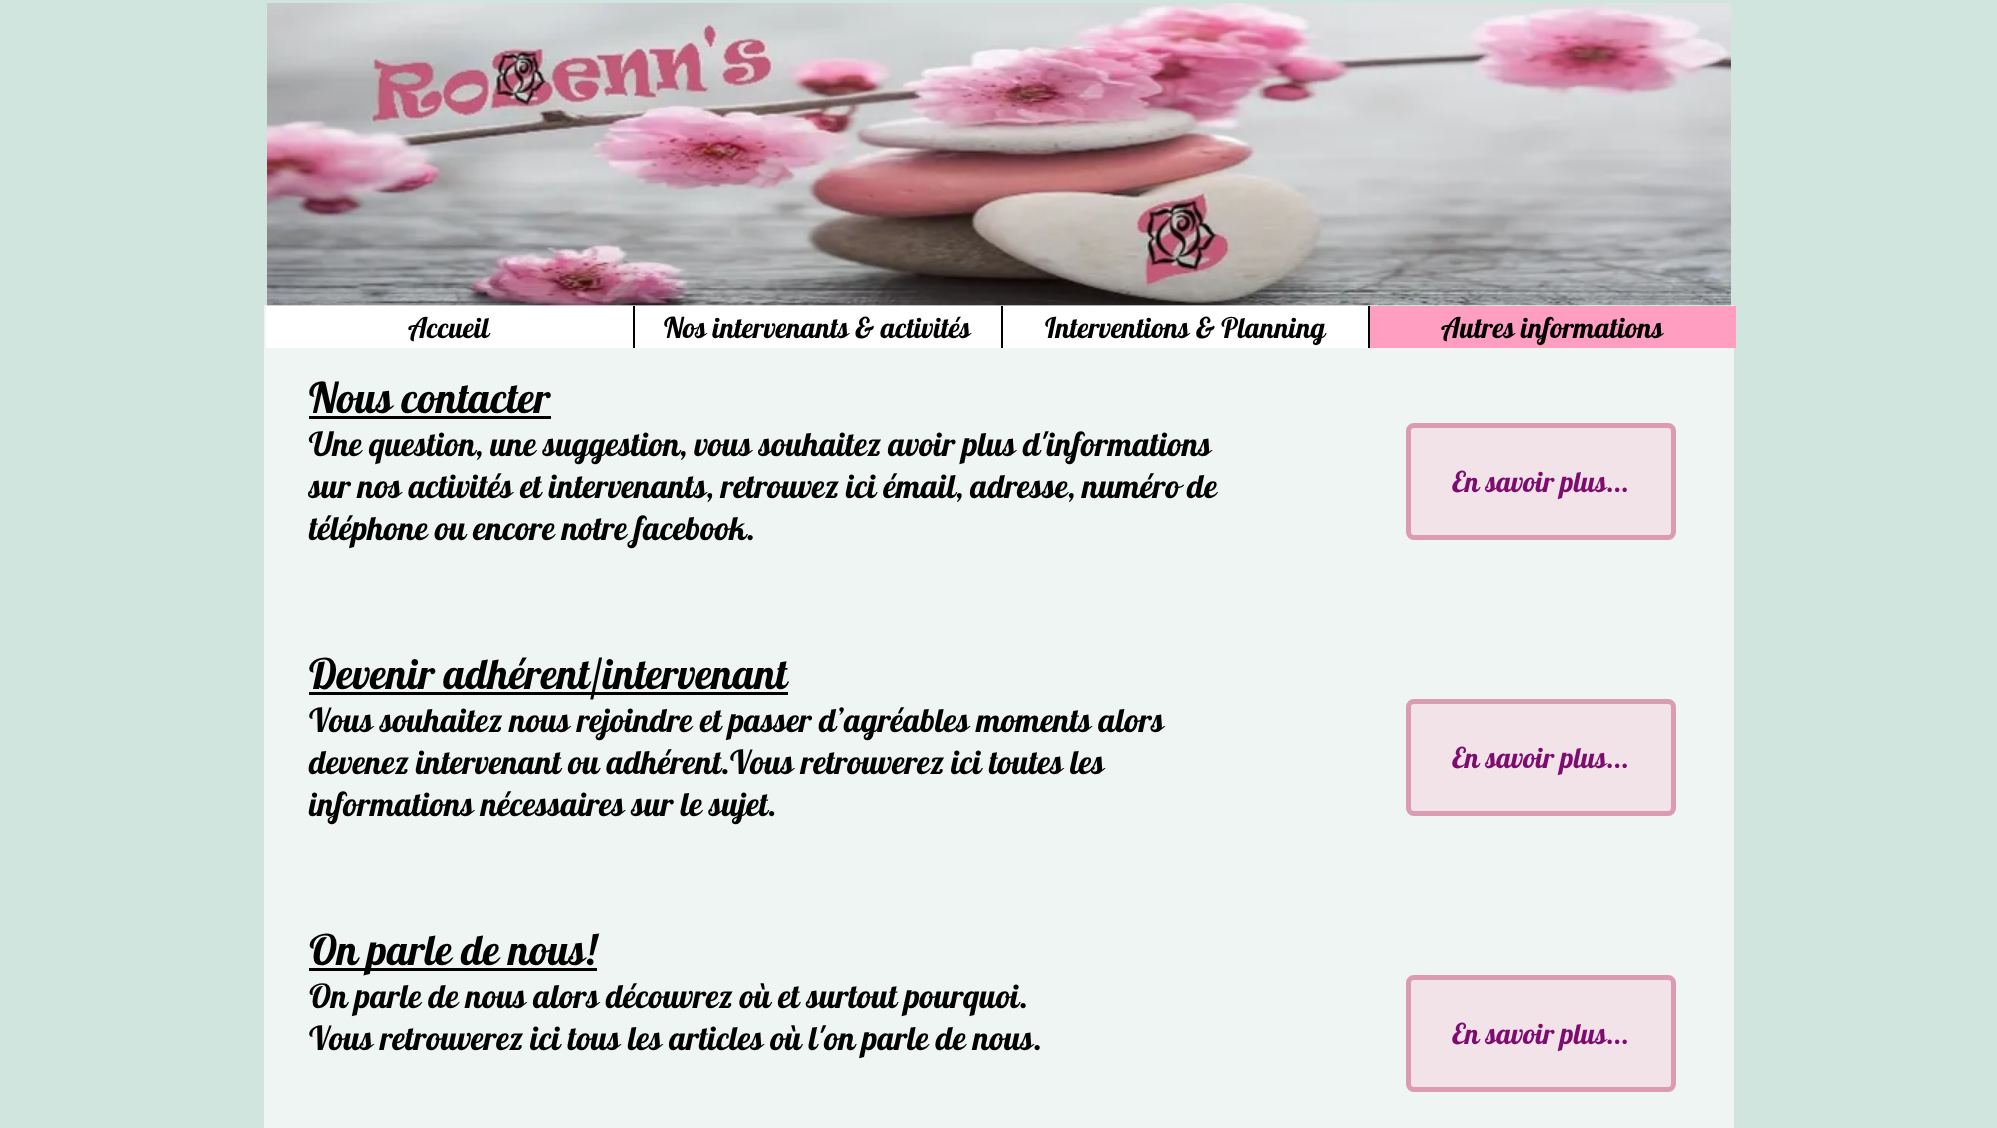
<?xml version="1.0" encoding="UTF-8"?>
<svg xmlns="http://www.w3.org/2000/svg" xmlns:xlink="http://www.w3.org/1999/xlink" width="1997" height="1128">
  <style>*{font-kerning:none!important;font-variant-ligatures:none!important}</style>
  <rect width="100%" height="100%" fill="#d0e5de" />
  <image x="267" y="3" width="1464" height="303" xlink:href="image1.png" />
  <rect x="264" y="305" width="1470" height="823" fill="#ffffff" fill-opacity="0.63" />
  <rect x="266" y="306" width="1102" height="42" fill="#ffffff" />
  <rect x="633" y="306" width="2" height="42" fill="#000000" />
  <rect x="1001" y="306" width="2" height="42" fill="#000000" />
  <rect x="1370" y="306" width="366" height="42" fill="#ff9ec0" />
  <rect x="1368" y="306" width="2" height="42" fill="#000000" />
  <rect x="309" y="416" width="242" height="3" fill="#000000" />
  <rect x="1406" y="423" width="270" height="117" rx="8" fill="#f1e3e8" />
  <rect x="1408.5" y="425.5" width="265" height="112" rx="5.5" fill="none" stroke="#c7587f" stroke-opacity="0.51" stroke-width="5" />
  <rect x="309" y="692" width="479" height="3" fill="#000000" />
  <rect x="1406" y="699" width="270" height="117" rx="8" fill="#f1e3e8" />
  <rect x="1408.5" y="701.5" width="265" height="112" rx="5.5" fill="none" stroke="#c7587f" stroke-opacity="0.51" stroke-width="5" />
  <rect x="309" y="968" width="288" height="3" fill="#000000" />
  <rect x="1406" y="975" width="270" height="117" rx="8" fill="#f1e3e8" />
  <rect x="1408.5" y="977.5" width="265" height="112" rx="5.5" fill="none" stroke="#c7587f" stroke-opacity="0.51" stroke-width="5" />
  <text x="408" y="338" style="font-family: Lobster; font-size: 28.5px; fill: #000000">Accueil</text>
  <text x="664" y="338" style="font-family: Lobster; font-size: 28.5px; fill: #000000">Nos intervenants &amp; activités</text>
  <text x="1045" y="338" style="font-family: Lobster; font-size: 28.5px; fill: #000000">Interventions &amp; Planning</text>
  <text x="1441" y="338" style="font-family: Lobster; font-size: 28.5px; fill: #000000">Autres informations</text>
  <text x="309" y="413" style="font-family: Lobster; font-size: 42px; fill: #000000">Nous contacter</text>
  <text x="309" y="456" style="font-family: Lobster; font-size: 33px; fill: #000000">Une question, une suggestion, vous</text>
  <text x="759" y="456" style="font-family: Lobster; font-size: 33px; fill: #000000">souhaitez avoir plus d'informations</text>
  <text x="309" y="498" style="font-family: Lobster; font-size: 33px; fill: #000000">sur nos activités et intervenants,</text>
  <text x="721" y="498" style="font-family: Lobster; font-size: 33px; fill: #000000">retrouvez ici émail, adresse, numéro de</text>
  <text x="309" y="540" style="font-family: Lobster; font-size: 33px; fill: #000000">téléphone ou encore notre facebook.</text>
  <text x="1452" y="492" style="font-family: Lobster; font-size: 28.5px; fill: #7e0c6e">En savoir plus...</text>
  <text x="309" y="689" style="font-family: Lobster; font-size: 42px; fill: #000000">Devenir adhérent/intervenant</text>
  <text x="309" y="732" style="font-family: Lobster; font-size: 33px; fill: #000000">Vous souhaitez nous rejoindre</text>
  <text x="700" y="732" style="font-family: Lobster; font-size: 33px; fill: #000000">et passer d’agréables moments alors</text>
  <text x="309" y="774" style="font-family: Lobster; font-size: 33px; fill: #000000">devenez intervenant ou adhérent.Vous retrouverez ici</text>
  <text x="989" y="774" style="font-family: Lobster; font-size: 33px; fill: #000000">toutes les</text>
  <text x="309" y="816" style="font-family: Lobster; font-size: 33px; fill: #000000">informations nécessaires sur le sujet.</text>
  <text x="1452" y="768" style="font-family: Lobster; font-size: 28.5px; fill: #7e0c6e">En savoir plus...</text>
  <text x="309" y="965" style="font-family: Lobster; font-size: 42px; fill: #000000">On parle de nous!</text>
  <text x="309" y="1008" style="font-family: Lobster; font-size: 33px; fill: #000000">On parle de nous alors</text>
  <text x="606" y="1008" style="font-family: Lobster; font-size: 33px; fill: #000000">découvrez où et surtout pourquoi.</text>
  <text x="309" y="1050" style="font-family: Lobster; font-size: 33px; fill: #000000">Vous retrouverez ici tous</text>
  <text x="628" y="1050" style="font-family: Lobster; font-size: 33px; fill: #000000">les articles où l'on</text>
  <text x="862" y="1050" style="font-family: Lobster; font-size: 33px; fill: #000000">parle de nous.</text>
  <text x="1452" y="1044" style="font-family: Lobster; font-size: 28.5px; fill: #7e0c6e">En savoir plus...</text>
</svg>
